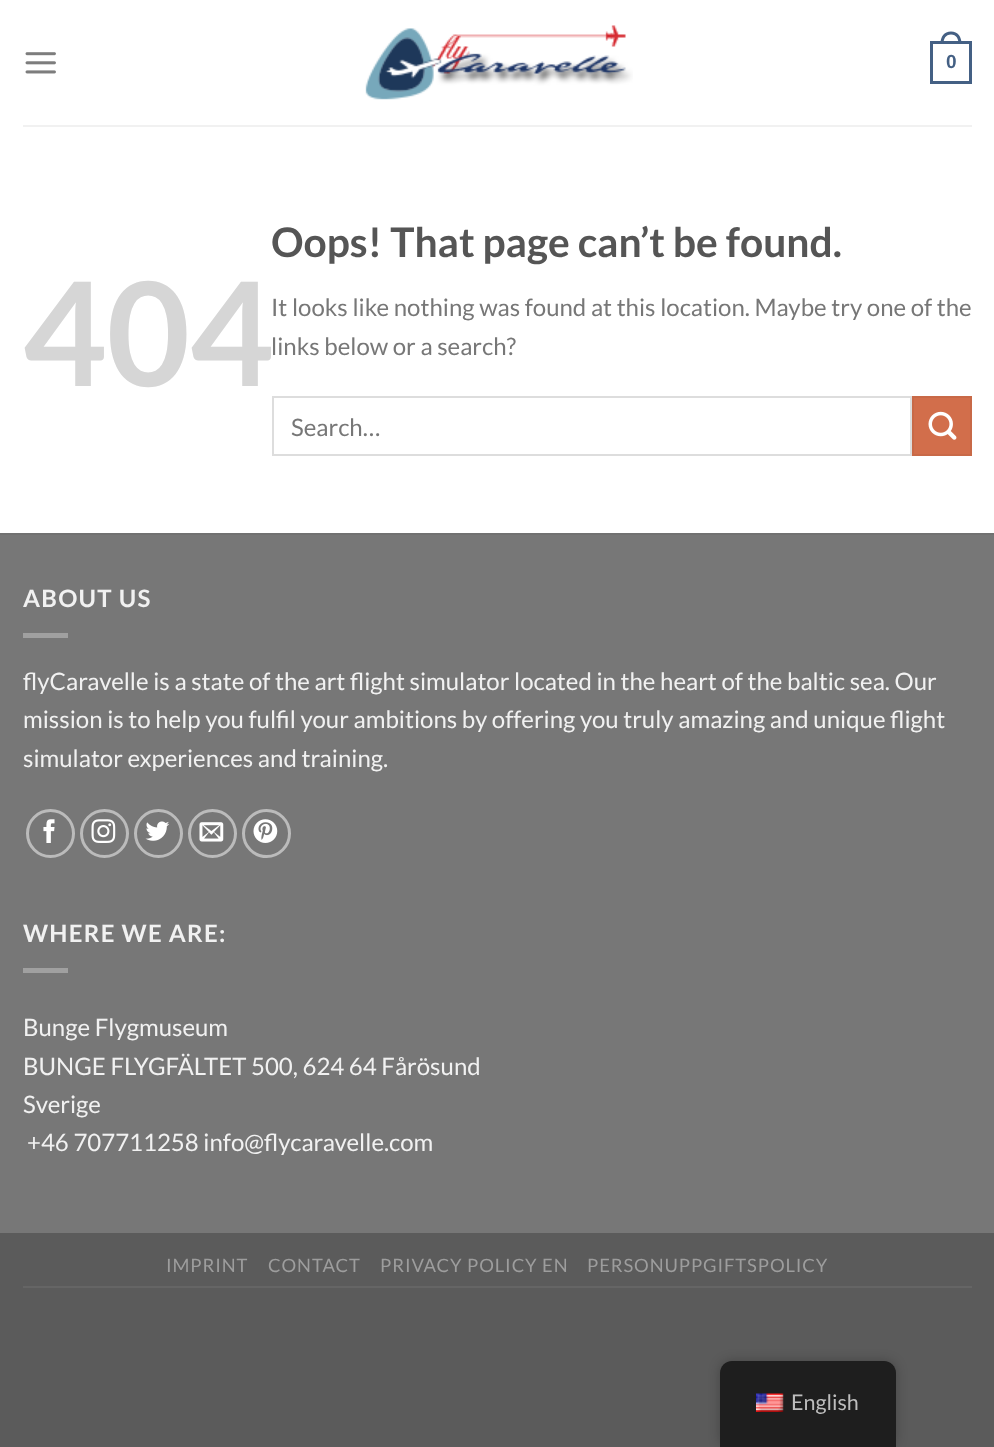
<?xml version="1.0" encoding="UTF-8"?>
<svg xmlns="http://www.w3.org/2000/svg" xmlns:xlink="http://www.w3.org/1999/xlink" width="994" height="1447">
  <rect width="100%" height="100%" fill="#5b5b5b" />
  <rect width="994" height="533" fill="#ffffff" />
  <image x="25" y="52" width="31" height="22" xlink:href="image1.png" />
  <image x="365" y="25" width="268" height="75" xlink:href="image2.png" />
  <rect x="931.5" y="42.5" width="39" height="40" fill="none" stroke="#446084" stroke-width="3" />
  <path d="M 951 31.5 c 7 0 10.5 5.5 10.5 12 h -21 c 0 -6.5 3.5 -12 10.5 -12 z m 0 3 c 5.5 0 7.5 4.5 7.5 9 h -15 c 0 -4.5 2 -9 7.5 -9 z" fill="#446084" fill-rule="evenodd" />
  <rect x="23" y="125" width="949" height="2" fill="#f1f1f1" />
  <rect x="273" y="397" width="638" height="58" fill="none" stroke="#dddddd" stroke-width="2" />
  <rect x="913" y="397" width="58" height="58" fill="#d26e4b" stroke="#c86947" stroke-width="2" />
  <image x="928" y="411" width="29" height="29" xlink:href="image3.png" />
  <rect y="535" width="994" height="698" fill="#777777" />
  <rect y="533" width="994" height="2" fill="#717171" />
  <rect x="23" y="633" width="45" height="5" fill="#a0a0a0" />
  <circle cx="50.5" cy="833.5" r="23" fill="none" stroke="#bbbbbb" stroke-width="3" />
  <image x="43" y="819" width="12" height="24" xlink:href="image4.png" />
  <circle cx="104.5" cy="833.5" r="23" fill="none" stroke="#bbbbbb" stroke-width="3" />
  <image x="91" y="819" width="25" height="24" xlink:href="image5.png" />
  <circle cx="158.5" cy="833.5" r="23" fill="none" stroke="#bbbbbb" stroke-width="3" />
  <image x="145" y="821" width="24" height="20" xlink:href="image6.png" />
  <circle cx="212.5" cy="833.5" r="23" fill="none" stroke="#bbbbbb" stroke-width="3" />
  <image x="199" y="822" width="25" height="20" xlink:href="image7.png" />
  <circle cx="266.5" cy="833.5" r="23" fill="none" stroke="#bbbbbb" stroke-width="3" />
  <image x="253" y="819" width="25" height="24" xlink:href="image8.png" />
  <rect x="23" y="968" width="45" height="5" fill="#a0a0a0" />
  <rect x="23" y="1286" width="949" height="2" fill="#656565" />
  <rect x="720" y="1361" width="176" height="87" rx="12" fill="#000000" fill-opacity="0.25" filter="blur(6px)" />
  <path d="M 732 1361 h 152 c 6.5 0 12 5.5 12 12 v 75 h -176 v -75 c 0 -6.5 5.5 -12 12 -12 z" fill="#1e1e1e" />
  <image x="756" y="1393" width="28" height="19" xlink:href="image9.png" />
  <text x="946" y="68" style="font-family: Liberation Sans; font-size: 19px; font-weight: bold; fill: #446084">0</text>
  <text x="23" y="386" style="font-family: Lato; font-size: 144px; font-weight: bold; fill: #d6d6d6">404</text>
  <text x="271" y="257" style="font-family: Lato; font-size: 40.75px; font-weight: bold; fill: #555555">Oops! That page can’t be found.</text>
  <text x="271" y="316" style="font-family: Lato; font-size: 24px; fill: #777777">It looks like nothing was found at this location. Maybe try one of the</text>
  <text x="271" y="355" style="font-family: Lato; font-size: 24px; fill: #777777">links below or a search?</text>
  <text x="291" y="436" style="font-family: Lato; font-size: 24px; fill: #777777">Search…</text>
  <text x="23" y="607" style="font-family: Lato; font-size: 24px; font-weight: bold; letter-spacing: 1.25px; fill: #f1f1f1">ABOUT US</text>
  <text x="23" y="690" style="font-family: Lato; font-size: 24px; fill: #f1f1f1">flyCaravelle is a state of the art flight simulator located in the heart of the baltic sea. Our</text>
  <text x="23" y="728" style="font-family: Lato; font-size: 24px; fill: #f1f1f1">mission is to help you fulfil your ambitions by offering you truly amazing and unique flight</text>
  <text x="23" y="767" style="font-family: Lato; font-size: 24px; fill: #f1f1f1">simulator experiences and training.</text>
  <text x="23" y="942" style="font-family: Lato; font-size: 24px; font-weight: bold; letter-spacing: 1.25px; fill: #f1f1f1">WHERE WE ARE:</text>
  <text x="23" y="1036" style="font-family: Lato; font-size: 24px; fill: #f1f1f1">Bunge Flygmuseum</text>
  <text x="23" y="1075" style="font-family: Lato; font-size: 24px; fill: #f1f1f1">BUNGE FLYGFÄLTET 500, 624 64 Fårösund</text>
  <text x="23" y="1113" style="font-family: Lato; font-size: 24px; fill: #f1f1f1">Sverige</text>
  <text x="27" y="1151" style="font-family: Lato; font-size: 24px; fill: #f1f1f1">+46 707711258 info@flycaravelle.com</text>
  <text x="166" y="1272" style="font-family: Lato; font-size: 18.4px; letter-spacing: 0.9px; fill: #9d9d9d">IMPRINT</text>
  <text x="268" y="1272" style="font-family: Lato; font-size: 18.4px; letter-spacing: 0.9px; fill: #9d9d9d">CONTACT</text>
  <text x="380" y="1272" style="font-family: Lato; font-size: 18.4px; letter-spacing: 0.9px; fill: #9d9d9d">PRIVACY POLICY EN</text>
  <text x="587" y="1272" style="font-family: Lato; font-size: 18.4px; letter-spacing: 0.9px; fill: #9d9d9d">PERSONUPPGIFTSPOLICY</text>
  <text x="791" y="1410" style="font-family: Lato; font-size: 21.5px; fill: #bdbdbd">English</text>
</svg>
